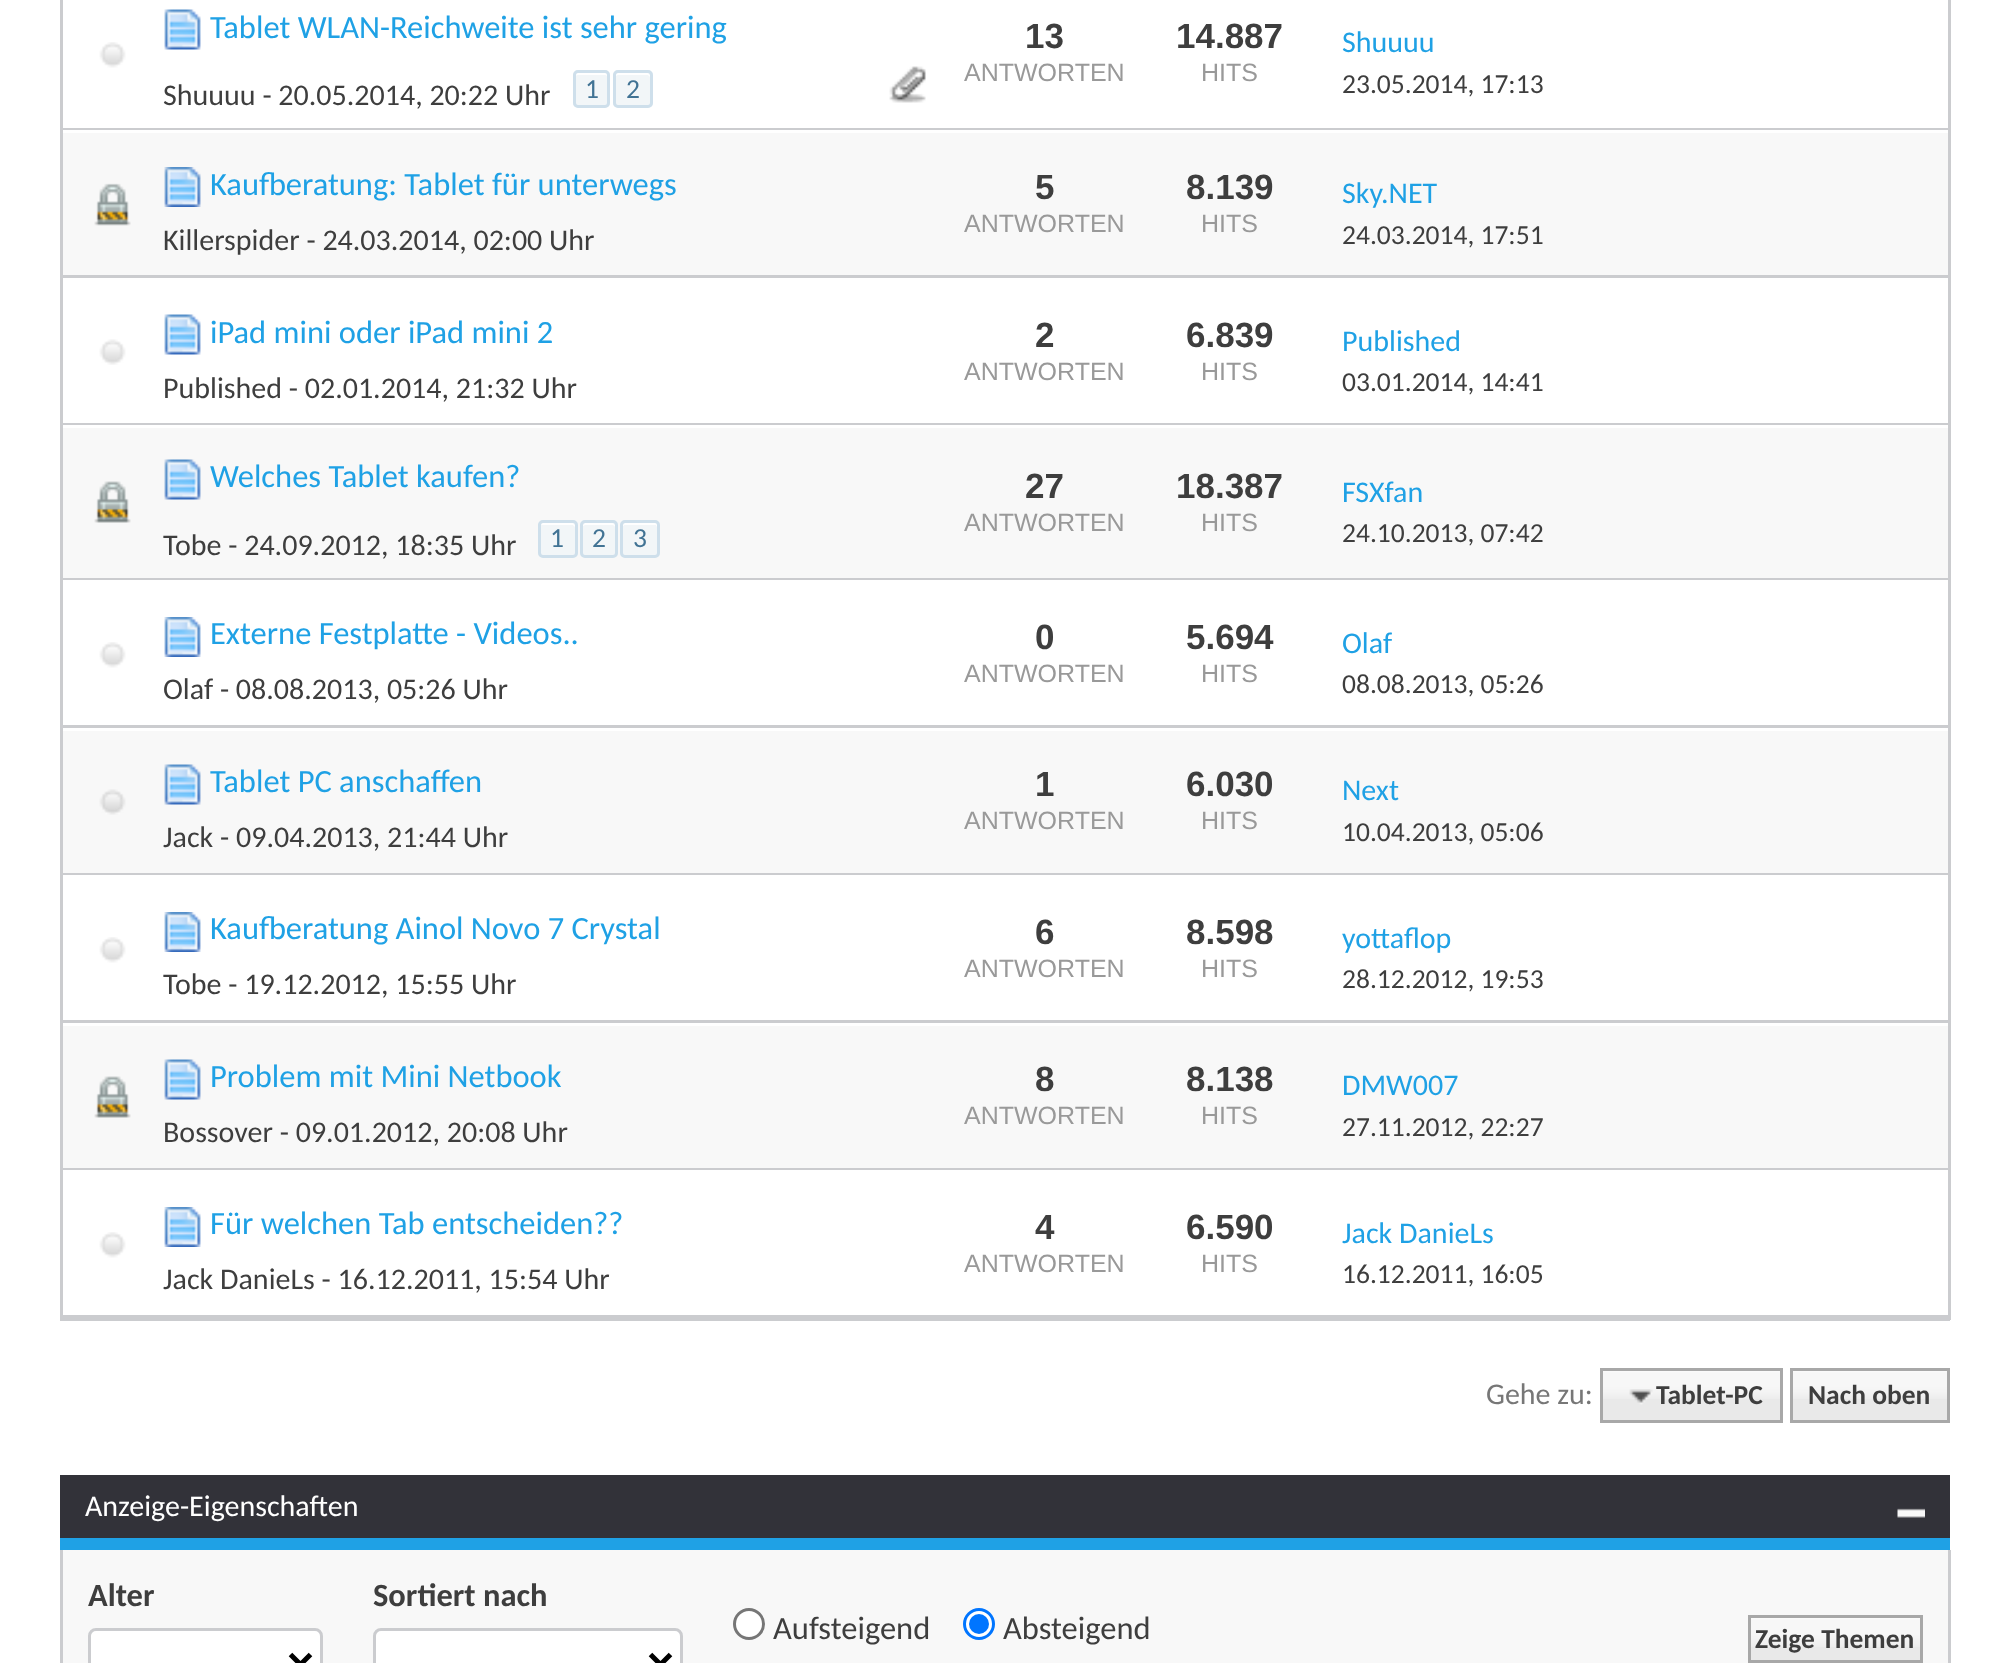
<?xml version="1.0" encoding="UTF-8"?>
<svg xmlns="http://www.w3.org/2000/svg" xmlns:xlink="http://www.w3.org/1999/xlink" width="2009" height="1663">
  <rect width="100%" height="100%" fill="#ffffff" />
  <rect x="1948" width="3" height="1320" fill="#cbcccf" />
  <rect x="60" y="1318" width="1890" height="3" fill="#cbcccf" />
  <rect x="60" width="3" height="1320" fill="#cbcccf" />
  <image x="164" y="9" width="37" height="41" xlink:href="image1.png" />
  <rect x="573" y="70" width="37" height="38" rx="5" fill="#f2f6f8" />
  <path d="M 578 75 h 27 c 1 0 3 1 3 3 c 0 -6 -1 -5 -7 -5 h -19 c -6 0 -7 -1 -7 5 c 0 -2 1 -3 3 -3 z" fill="#ffffff" />
  <rect x="574.5" y="71.5" width="34" height="35" rx="3.5" fill="none" stroke="#cedfeb" stroke-width="3" />
  <rect x="613" y="70" width="40" height="38" rx="5" fill="#f2f6f8" />
  <path d="M 618 75 h 30 l 2 2 c 0 -5 -2.5 -4 -7.5 -4 h -20 c -5.5 0 -7.5 -1 -7.5 4.5 c 0.5 -1.5 1.5 -2.5 3 -2.5 z" fill="#ffffff" />
  <rect x="614.5" y="71.5" width="37" height="35" rx="3.5" fill="none" stroke="#cedfeb" stroke-width="3" />
  <image x="889" y="66" width="37" height="37" xlink:href="image2.png" />
  <rect x="63" y="128" width="1885" height="2" fill="#cbcccf" />
  <image x="99" y="42" width="27" height="26" xlink:href="image3.png" />
  <rect x="63" y="133" width="1885" height="142" fill="#f8f8f8" />
  <image x="164" y="167" width="37" height="40" xlink:href="image4.png" />
  <rect x="63" y="275" width="1885" height="3" fill="#cbcccf" />
  <image x="94" y="183" width="37" height="43" xlink:href="image5.png" />
  <image x="164" y="314" width="37" height="41" xlink:href="image6.png" />
  <rect x="63" y="423" width="1885" height="2" fill="#cbcccf" />
  <image x="99" y="339" width="27" height="26" xlink:href="image7.png" />
  <rect x="63" y="428" width="1885" height="150" fill="#f8f8f8" />
  <image x="164" y="459" width="37" height="41" xlink:href="image8.png" />
  <rect x="538" y="520" width="40" height="38" rx="5" fill="#f2f6f8" />
  <path d="M 542 525 h 31 l 2 2 c 0 -5 -2.5 -4 -7.5 -4 h -20 c -4 0 -7.5 -1 -7.5 3.5 c 0.5 -1 1 -1.5 2 -1.5 z" fill="#ffffff" />
  <rect x="539.5" y="521.5" width="37" height="35" rx="3.5" fill="none" stroke="#cedfeb" stroke-width="3" />
  <rect x="580" y="520" width="38" height="38" rx="5" fill="#f2f6f8" />
  <path d="M 585 525 h 27 c 2 0 3 1 3 3 c 0 -5.5 -1 -5 -7 -5 h -18 c -2.5 0 -7 -1 -7 3 z" fill="#ffffff" />
  <rect x="581.5" y="521.5" width="35" height="35" rx="3.5" fill="none" stroke="#cedfeb" stroke-width="3" />
  <rect x="620" y="520" width="40" height="38" rx="5" fill="#f2f6f8" />
  <path d="M 625 525 h 31 l 1 2 l 1 19 v -20.5 c 0 -1.5 -1 -2.5 -2.5 -2.5 h -30 c -1.5 0 -2.5 1 -2.5 2.5 v 1 c 0.5 -1 1 -1.5 2 -1.5 z" fill="#ffffff" />
  <rect x="621.5" y="521.5" width="37" height="35" rx="3.5" fill="none" stroke="#cedfeb" stroke-width="3" />
  <rect x="63" y="578" width="1885" height="2" fill="#cbcccf" />
  <image x="94" y="481" width="37" height="42" xlink:href="image9.png" />
  <image x="164" y="617" width="37" height="40" xlink:href="image10.png" />
  <rect x="63" y="725" width="1885" height="3" fill="#cbcccf" />
  <image x="99" y="642" width="27" height="26" xlink:href="image11.png" />
  <rect x="63" y="731" width="1885" height="142" fill="#f8f8f8" />
  <image x="164" y="764" width="37" height="41" xlink:href="image8.png" />
  <rect x="63" y="873" width="1885" height="2" fill="#cbcccf" />
  <image x="99" y="789" width="27" height="26" xlink:href="image12.png" />
  <image x="164" y="912" width="37" height="40" xlink:href="image13.png" />
  <rect x="63" y="1020" width="1885" height="3" fill="#cbcccf" />
  <image x="99" y="937" width="27" height="26" xlink:href="image11.png" />
  <rect x="63" y="1026" width="1885" height="142" fill="#f8f8f8" />
  <image x="164" y="1059" width="37" height="41" xlink:href="image8.png" />
  <rect x="63" y="1168" width="1885" height="2" fill="#cbcccf" />
  <image x="94" y="1076" width="37" height="42" xlink:href="image9.png" />
  <image x="164" y="1207" width="37" height="40" xlink:href="image10.png" />
  <rect x="63" y="1315" width="1885" height="3" fill="#cbcccf" />
  <image x="99" y="1232" width="27" height="26" xlink:href="image11.png" />
  <rect x="1603" y="1371" width="177" height="49" fill="#e9e9e9" />
  <image x="1603" y="1371" width="177" height="28" xlink:href="image14.png" />
  <rect x="1793" y="1371" width="154" height="49" fill="#e9e9e9" />
  <image x="1793" y="1371" width="154" height="28" xlink:href="image15.png" />
  <rect x="1601.5" y="1369.5" width="180" height="52" fill="none" stroke="#a8a8a8" stroke-width="3" />
  <image x="1629" y="1389" width="24" height="16" xlink:href="image16.png" />
  <rect x="1791.5" y="1369.5" width="157" height="52" fill="none" stroke="#a8a8a8" stroke-width="3" />
  <rect x="60" y="1475" width="1890" height="63" fill="#323239" />
  <rect x="60" y="1538" width="1890" height="12" fill="#1fa1e5" />
  <image x="1897" y="1508" width="28" height="10" xlink:href="image17.png" />
  <rect x="63" y="1550" width="1885" height="113" fill="#f8f8f8" />
  <rect x="1948" y="1550" width="3" height="113" fill="#cbcccf" />
  <rect x="60" y="1550" width="3" height="113" fill="#cbcccf" />
  <rect x="89.5" y="1629.5" width="232" height="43" rx="6.5" fill="#ffffff" stroke="#cbcccf" stroke-width="3" />
  <path d="M 290.5 1654.5 l 10 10 l 10 -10" fill="none" stroke="#000000" stroke-width="5" />
  <rect x="374.5" y="1629.5" width="307" height="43" rx="6.5" fill="#ffffff" stroke="#cbcccf" stroke-width="3" />
  <path d="M 650.5 1654.5 l 10 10 l 10 -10" fill="none" stroke="#000000" stroke-width="5" />
  <circle cx="749" cy="1624" r="14.5" fill="#ffffff" stroke="#767676" stroke-width="3" />
  <circle cx="979" cy="1624" r="14.5" fill="#ffffff" stroke="#0075ff" stroke-width="3" />
  <circle cx="979" cy="1624" r="10" fill="#0075ff" />
  <rect x="1751" y="1618" width="169" height="42" fill="#e9e9e9" />
  <image x="1751" y="1618" width="169" height="29" xlink:href="image18.png" />
  <rect x="1749.5" y="1616.5" width="172" height="45" fill="none" stroke="#a8a8a8" stroke-width="3" />
  <text x="210" y="38" style="font-family: Carlito; font-size: 32.5px; fill: #1fa1e5">Tablet WLAN-Reichweite ist sehr gering</text>
  <text x="163" y="105" style="font-family: Carlito; font-size: 30px; fill: #3e3e3e">Shuuuu - 20.05.2014, 20:22 Uhr</text>
  <text x="585" y="98" style="font-family: Carlito; font-size: 27.5px; fill: #417394">1</text>
  <text x="626" y="98" style="font-family: Carlito; font-size: 27.5px; fill: #417394">2</text>
  <text x="1025" y="48" style="font-family: Liberation Sans; font-size: 35px; font-weight: bold; fill: #3e3e3e">13</text>
  <text x="964" y="81" style="font-family: Liberation Sans; font-size: 25px; fill: #999999">ANTWORTEN</text>
  <text x="1176" y="48" style="font-family: Liberation Sans; font-size: 35px; font-weight: bold; fill: #3e3e3e">14.887</text>
  <text x="1201" y="81" style="font-family: Liberation Sans; font-size: 25px; fill: #999999">HITS</text>
  <text x="1342" y="52" style="font-family: Carlito; font-size: 30px; fill: #1fa1e5">Shuuuu</text>
  <text x="1342" y="93" style="font-family: Carlito; font-size: 27.5px; fill: #3e3e3e">23.05.2014, 17:13</text>
  <text x="210" y="195" style="font-family: Carlito; font-size: 32.5px; fill: #1fa1e5">Kaufberatung: Tablet für unterwegs</text>
  <text x="163" y="250" style="font-family: Carlito; font-size: 30px; fill: #3e3e3e">Killerspider - 24.03.2014, 02:00 Uhr</text>
  <text x="1035" y="199" style="font-family: Liberation Sans; font-size: 35px; font-weight: bold; fill: #3e3e3e">5</text>
  <text x="964" y="232" style="font-family: Liberation Sans; font-size: 25px; fill: #999999">ANTWORTEN</text>
  <text x="1186" y="199" style="font-family: Liberation Sans; font-size: 35px; font-weight: bold; fill: #3e3e3e">8.139</text>
  <text x="1201" y="232" style="font-family: Liberation Sans; font-size: 25px; fill: #999999">HITS</text>
  <text x="1342" y="203" style="font-family: Carlito; font-size: 30px; fill: #1fa1e5">Sky.NET</text>
  <text x="1342" y="244" style="font-family: Carlito; font-size: 27.5px; fill: #3e3e3e">24.03.2014, 17:51</text>
  <text x="210" y="343" style="font-family: Carlito; font-size: 32.5px; fill: #1fa1e5">iPad mini oder iPad mini 2</text>
  <text x="163" y="398" style="font-family: Carlito; font-size: 30px; fill: #3e3e3e">Published - 02.01.2014, 21:32 Uhr</text>
  <text x="1035" y="347" style="font-family: Liberation Sans; font-size: 35px; font-weight: bold; fill: #3e3e3e">2</text>
  <text x="964" y="380" style="font-family: Liberation Sans; font-size: 25px; fill: #999999">ANTWORTEN</text>
  <text x="1186" y="347" style="font-family: Liberation Sans; font-size: 35px; font-weight: bold; fill: #3e3e3e">6.839</text>
  <text x="1201" y="380" style="font-family: Liberation Sans; font-size: 25px; fill: #999999">HITS</text>
  <text x="1342" y="351" style="font-family: Carlito; font-size: 30px; fill: #1fa1e5">Published</text>
  <text x="1342" y="391" style="font-family: Carlito; font-size: 27.5px; fill: #3e3e3e">03.01.2014, 14:41</text>
  <text x="210" y="487" style="font-family: Carlito; font-size: 32.5px; fill: #1fa1e5">Welches Tablet kaufen?</text>
  <text x="163" y="555" style="font-family: Carlito; font-size: 30px; fill: #3e3e3e">Tobe - 24.09.2012, 18:35 Uhr</text>
  <text x="550" y="547" style="font-family: Carlito; font-size: 27.5px; fill: #417394">1</text>
  <text x="592" y="547" style="font-family: Carlito; font-size: 27.5px; fill: #417394">2</text>
  <text x="633" y="547" style="font-family: Carlito; font-size: 27.5px; fill: #417394">3</text>
  <text x="1025" y="498" style="font-family: Liberation Sans; font-size: 35px; font-weight: bold; fill: #3e3e3e">27</text>
  <text x="964" y="531" style="font-family: Liberation Sans; font-size: 25px; fill: #999999">ANTWORTEN</text>
  <text x="1176" y="498" style="font-family: Liberation Sans; font-size: 35px; font-weight: bold; fill: #3e3e3e">18.387</text>
  <text x="1201" y="531" style="font-family: Liberation Sans; font-size: 25px; fill: #999999">HITS</text>
  <text x="1342" y="502" style="font-family: Carlito; font-size: 30px; fill: #1fa1e5">FSXfan</text>
  <text x="1342" y="542" style="font-family: Carlito; font-size: 27.5px; fill: #3e3e3e">24.10.2013, 07:42</text>
  <text x="210" y="644" style="font-family: Carlito; font-size: 32.5px; fill: #1fa1e5">Externe Festplatte - Videos..</text>
  <text x="163" y="699" style="font-family: Carlito; font-size: 30px; fill: #3e3e3e">Olaf - 08.08.2013, 05:26 Uhr</text>
  <text x="1035" y="649" style="font-family: Liberation Sans; font-size: 35px; font-weight: bold; fill: #3e3e3e">0</text>
  <text x="964" y="682" style="font-family: Liberation Sans; font-size: 25px; fill: #999999">ANTWORTEN</text>
  <text x="1186" y="649" style="font-family: Liberation Sans; font-size: 35px; font-weight: bold; fill: #3e3e3e">5.694</text>
  <text x="1201" y="682" style="font-family: Liberation Sans; font-size: 25px; fill: #999999">HITS</text>
  <text x="1342" y="653" style="font-family: Carlito; font-size: 30px; fill: #1fa1e5">Olaf</text>
  <text x="1342" y="693" style="font-family: Carlito; font-size: 27.5px; fill: #3e3e3e">08.08.2013, 05:26</text>
  <text x="210" y="792" style="font-family: Carlito; font-size: 32.5px; fill: #1fa1e5">Tablet PC anschaffen</text>
  <text x="163" y="847" style="font-family: Carlito; font-size: 30px; fill: #3e3e3e">Jack - 09.04.2013, 21:44 Uhr</text>
  <text x="1035" y="796" style="font-family: Liberation Sans; font-size: 35px; font-weight: bold; fill: #3e3e3e">1</text>
  <text x="964" y="829" style="font-family: Liberation Sans; font-size: 25px; fill: #999999">ANTWORTEN</text>
  <text x="1186" y="796" style="font-family: Liberation Sans; font-size: 35px; font-weight: bold; fill: #3e3e3e">6.030</text>
  <text x="1201" y="829" style="font-family: Liberation Sans; font-size: 25px; fill: #999999">HITS</text>
  <text x="1342" y="800" style="font-family: Carlito; font-size: 30px; fill: #1fa1e5">Next</text>
  <text x="1342" y="841" style="font-family: Carlito; font-size: 27.5px; fill: #3e3e3e">10.04.2013, 05:06</text>
  <text x="210" y="939" style="font-family: Carlito; font-size: 32.5px; fill: #1fa1e5">Kaufberatung Ainol Novo 7 Crystal</text>
  <text x="163" y="994" style="font-family: Carlito; font-size: 30px; fill: #3e3e3e">Tobe - 19.12.2012, 15:55 Uhr</text>
  <text x="1035" y="944" style="font-family: Liberation Sans; font-size: 35px; font-weight: bold; fill: #3e3e3e">6</text>
  <text x="964" y="977" style="font-family: Liberation Sans; font-size: 25px; fill: #999999">ANTWORTEN</text>
  <text x="1186" y="944" style="font-family: Liberation Sans; font-size: 35px; font-weight: bold; fill: #3e3e3e">8.598</text>
  <text x="1201" y="977" style="font-family: Liberation Sans; font-size: 25px; fill: #999999">HITS</text>
  <text x="1342" y="948" style="font-family: Carlito; font-size: 30px; fill: #1fa1e5">yottaflop</text>
  <text x="1342" y="988" style="font-family: Carlito; font-size: 27.5px; fill: #3e3e3e">28.12.2012, 19:53</text>
  <text x="210" y="1087" style="font-family: Carlito; font-size: 32.5px; fill: #1fa1e5">Problem mit Mini Netbook</text>
  <text x="163" y="1142" style="font-family: Carlito; font-size: 30px; fill: #3e3e3e">Bossover - 09.01.2012, 20:08 Uhr</text>
  <text x="1035" y="1091" style="font-family: Liberation Sans; font-size: 35px; font-weight: bold; fill: #3e3e3e">8</text>
  <text x="964" y="1124" style="font-family: Liberation Sans; font-size: 25px; fill: #999999">ANTWORTEN</text>
  <text x="1186" y="1091" style="font-family: Liberation Sans; font-size: 35px; font-weight: bold; fill: #3e3e3e">8.138</text>
  <text x="1201" y="1124" style="font-family: Liberation Sans; font-size: 25px; fill: #999999">HITS</text>
  <text x="1342" y="1095" style="font-family: Carlito; font-size: 30px; fill: #1fa1e5">DMW007</text>
  <text x="1342" y="1136" style="font-family: Carlito; font-size: 27.5px; fill: #3e3e3e">27.11.2012, 22:27</text>
  <text x="210" y="1234" style="font-family: Carlito; font-size: 32.5px; fill: #1fa1e5">Für welchen Tab entscheiden??</text>
  <text x="163" y="1289" style="font-family: Carlito; font-size: 30px; fill: #3e3e3e">Jack DanieLs - 16.12.2011, 15:54 Uhr</text>
  <text x="1035" y="1239" style="font-family: Liberation Sans; font-size: 35px; font-weight: bold; fill: #3e3e3e">4</text>
  <text x="964" y="1272" style="font-family: Liberation Sans; font-size: 25px; fill: #999999">ANTWORTEN</text>
  <text x="1186" y="1239" style="font-family: Liberation Sans; font-size: 35px; font-weight: bold; fill: #3e3e3e">6.590</text>
  <text x="1201" y="1272" style="font-family: Liberation Sans; font-size: 25px; fill: #999999">HITS</text>
  <text x="1342" y="1243" style="font-family: Carlito; font-size: 30px; fill: #1fa1e5">Jack DanieLs</text>
  <text x="1342" y="1283" style="font-family: Carlito; font-size: 27.5px; fill: #3e3e3e">16.12.2011, 16:05</text>
  <text x="1486" y="1404" style="font-family: Carlito; font-size: 30px; fill: #777777">Gehe zu:</text>
  <text x="1656" y="1404" style="font-family: Carlito; font-size: 27.5px; font-weight: bold; fill: #3e3e3e">Tablet-PC</text>
  <text x="1808" y="1404" style="font-family: Carlito; font-size: 27.5px; font-weight: bold; fill: #3e3e3e">Nach oben</text>
  <text x="85" y="1516" style="font-family: Carlito; font-size: 30px; fill: #ffffff">Anzeige-Eigenschaften</text>
  <text x="88" y="1606" style="font-family: Carlito; font-size: 32.5px; font-weight: bold; fill: #3e3e3e">Alter</text>
  <text x="373" y="1606" style="font-family: Carlito; font-size: 32.5px; font-weight: bold; fill: #3e3e3e">Sortiert nach</text>
  <text x="773" y="1639" style="font-family: Carlito; font-size: 32.5px; fill: #3e3e3e">Aufsteigend</text>
  <text x="1003" y="1639" style="font-family: Carlito; font-size: 32.5px; fill: #3e3e3e">Absteigend</text>
  <text x="1755" y="1648" style="font-family: Carlito; font-size: 27.5px; font-weight: bold; fill: #3e3e3e">Zeige Themen</text>
</svg>
